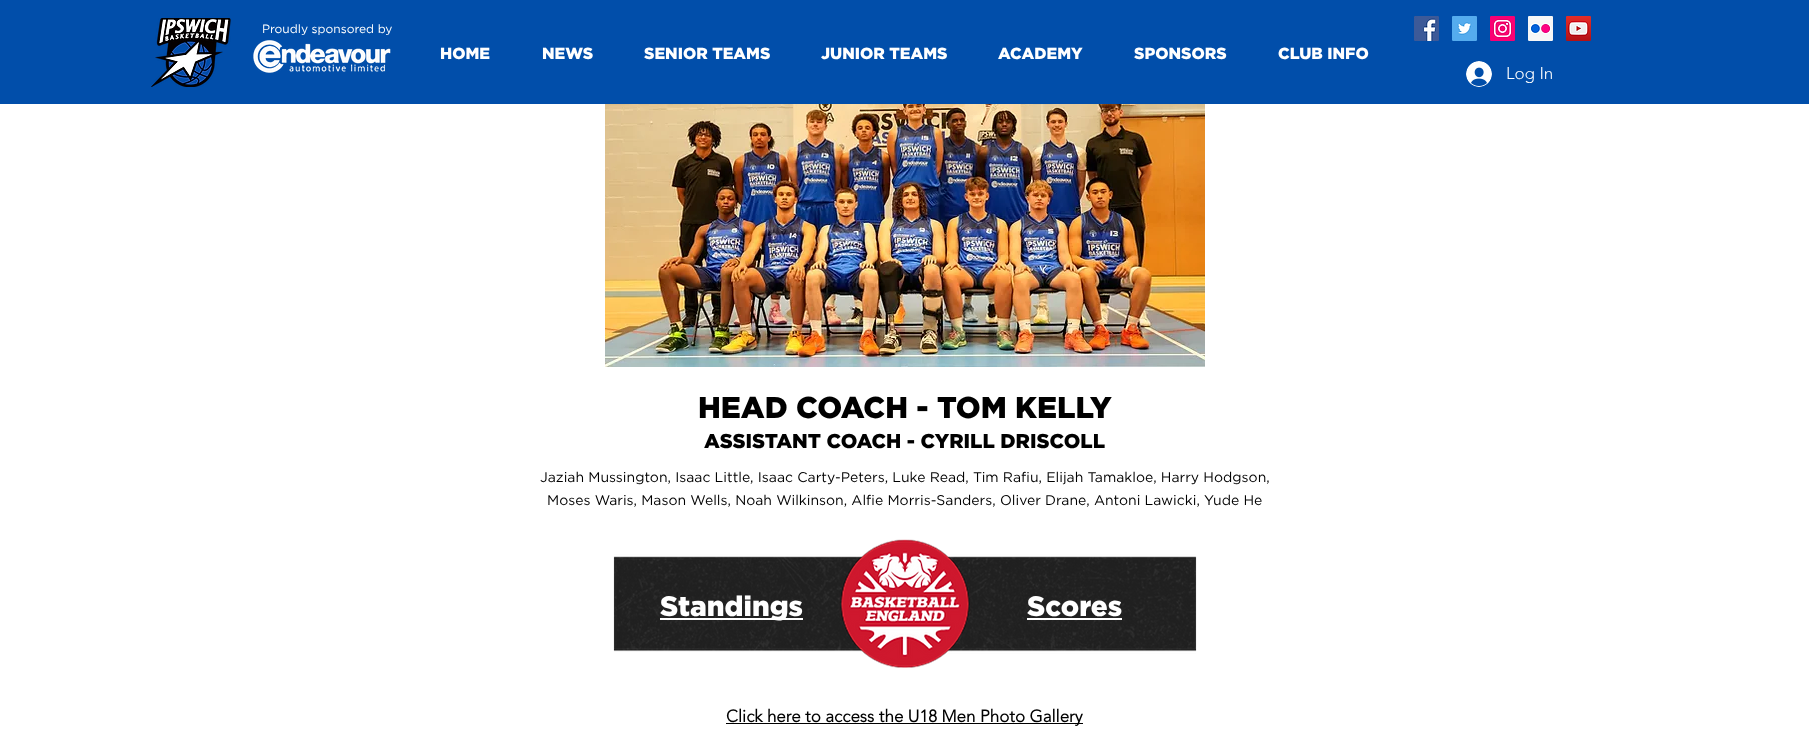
<?xml version="1.0" encoding="UTF-8"?>
<svg xmlns="http://www.w3.org/2000/svg" xmlns:xlink="http://www.w3.org/1999/xlink" width="1809" height="736">
  <rect width="100%" height="100%" fill="#ffffff" />
  <rect width="1809" height="104" fill="#014eaa" />
  <image x="151" y="18" width="80" height="69" xlink:href="image1.png" />
  <image x="253" y="40" width="138" height="33" xlink:href="image2.png" />
  <image x="1414" y="16" width="25" height="25" xlink:href="image3.png" />
  <image x="1452" y="16" width="25" height="25" xlink:href="image4.png" />
  <image x="1490" y="16" width="25" height="25" xlink:href="image5.png" />
  <image x="1528" y="16" width="25" height="25" xlink:href="image6.png" />
  <image x="1566" y="16" width="25" height="25" xlink:href="image7.png" />
  <image x="1466" y="61" width="26" height="26" xlink:href="image8.png" />
  <image x="605" y="104" width="600" height="263" xlink:href="image9.png" />
  <image x="613" y="539" width="584" height="129" xlink:href="image10.png" />
  <rect x="660" y="618" width="143" height="2" fill="#ffffff" />
  <rect x="1027" y="618" width="95" height="2" fill="#ffffff" />
  <rect x="726" y="723" width="357" height="1" fill="#000000" />
  <text x="262" y="33" style="font-family: Gotham; font-size: 12px; fill: #ffffff">Proudly sponsored by</text>
  <text x="440" y="59" style="font-family: Gotham; font-size: 16px; font-weight: 900; fill: #ffffff">HOME</text>
  <text x="542" y="59" style="font-family: Gotham; font-size: 16px; font-weight: 900; fill: #ffffff">NEWS</text>
  <text x="644" y="59" style="font-family: Gotham; font-size: 16px; font-weight: 900; fill: #ffffff">SENIOR TEAMS</text>
  <text x="821" y="59" style="font-family: Gotham; font-size: 16px; font-weight: 900; fill: #ffffff">JUNIOR TEAMS</text>
  <text x="998" y="59" style="font-family: Gotham; font-size: 16px; font-weight: 900; fill: #ffffff">ACADEMY</text>
  <text x="1134" y="59" style="font-family: Gotham; font-size: 16px; font-weight: 900; fill: #ffffff">SPONSORS</text>
  <text x="1278" y="59" style="font-family: Gotham; font-size: 16px; font-weight: 900; fill: #ffffff">CLUB INFO</text>
  <text x="1506" y="79" style="font-family: 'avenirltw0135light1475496'; font-size: 17px; font-weight: 300; fill: #ffffff">Log In</text>
  <text x="698" y="418" style="font-family: Gotham; font-size: 30px; font-weight: 900; fill: #000000">HEAD COACH - TOM KELLY</text>
  <text x="704" y="448" style="font-family: Gotham; font-size: 20px; font-weight: 900; fill: #000000">ASSISTANT COACH - CYRILL DRISCOLL</text>
  <text x="540" y="482" style="font-family: Gotham; font-size: 14px; fill: #000000">Jaziah Mussington, Isaac Little, Isaac Carty-Peters, Luke Read, Tim Rafiu, Elijah Tamakloe, Harry Hodgson,</text>
  <text x="547" y="505" style="font-family: Gotham; font-size: 14px; fill: #000000">Moses Waris, Mason Wells, Noah Wilkinson, Alfie Morris-Sanders, Oliver Drane, Antoni Lawicki, Yude He</text>
  <text x="660" y="616" style="font-family: Gotham; font-size: 28px; font-weight: 900; fill: #ffffff">Standings</text>
  <text x="1027" y="616" style="font-family: Gotham; font-size: 28px; font-weight: 900; fill: #ffffff">Scores</text>
  <text x="726" y="722" style="font-family: 'avenirltw0135light1475496'; font-size: 17px; font-weight: bold; fill: #000000">Click here to access the U18 Men Photo Gallery</text>
</svg>
